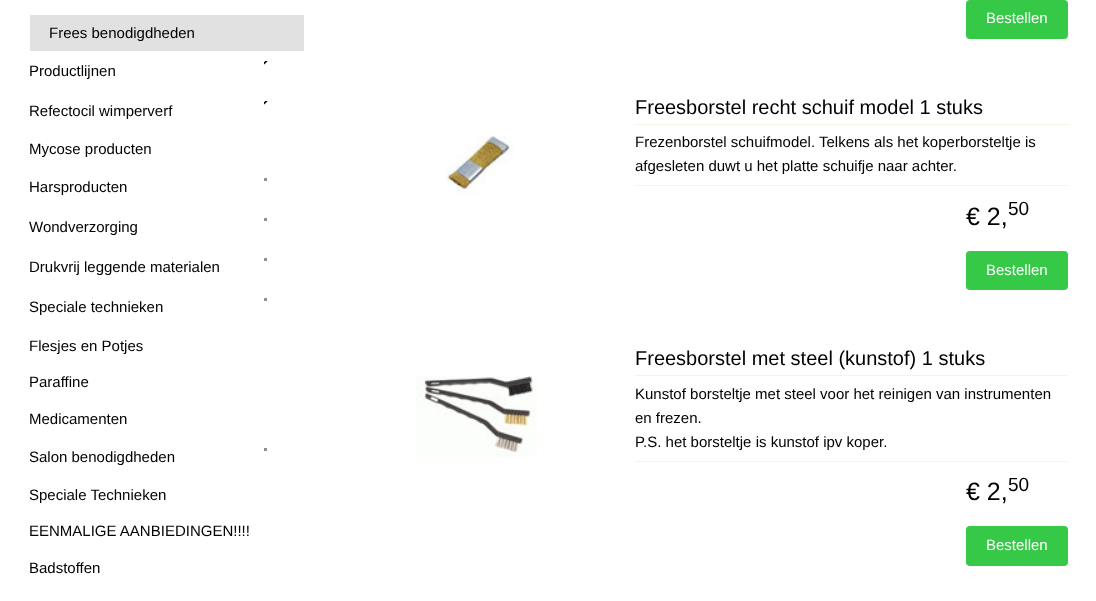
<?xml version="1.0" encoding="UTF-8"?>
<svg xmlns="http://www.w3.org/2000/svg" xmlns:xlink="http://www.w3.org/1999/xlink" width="1096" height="601">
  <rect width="100%" height="100%" fill="#ffffff" />
  <rect x="30" y="15" width="274" height="36" fill="#e1e1e1" />
  <image x="264" y="61" width="4" height="4" xlink:href="image1.png" />
  <image x="264" y="101" width="4" height="4" xlink:href="image1.png" />
  <rect x="264" y="178" width="3" height="3" fill="#919191" />
  <rect x="264" y="218" width="3" height="3" fill="#919191" />
  <rect x="264" y="258" width="3" height="3" fill="#919191" />
  <rect x="264" y="298" width="3" height="3" fill="#919191" />
  <rect x="264" y="448" width="3" height="3" fill="#919191" />
  <rect x="966" width="102" height="39" rx="4" fill="#36c947" />
  <image x="446" y="135" width="69" height="60" xlink:href="image2.png" />
  <rect x="635" y="124" width="433" height="1" fill="#f7f3e9" />
  <rect x="635" y="185" width="433" height="1" fill="#f7f3e9" />
  <rect x="966" y="251" width="102" height="39" rx="4" fill="#36c947" />
  <image x="416" y="376" width="121" height="81" xlink:href="image3.png" />
  <rect x="635" y="375" width="433" height="1" fill="#f7f3e9" />
  <rect x="635" y="461" width="433" height="1" fill="#f7f3e9" />
  <rect x="966" y="526" width="102" height="40" rx="4" fill="#36c947" />
  <text x="49" y="38" style="font-family: Liberation Sans; font-size: 15px; fill: #000000">Frees benodigdheden</text>
  <text x="29" y="76" style="font-family: Liberation Sans; font-size: 15px; fill: #000000">Productlijnen</text>
  <text x="29" y="116" style="font-family: Liberation Sans; font-size: 15px; fill: #000000">Refectocil wimperverf</text>
  <text x="29" y="154" style="font-family: Liberation Sans; font-size: 15px; fill: #000000">Mycose producten</text>
  <text x="29" y="192" style="font-family: Liberation Sans; font-size: 15px; fill: #000000">Harsproducten</text>
  <text x="29" y="232" style="font-family: Liberation Sans; font-size: 15px; fill: #000000">Wondverzorging</text>
  <text x="29" y="272" style="font-family: Liberation Sans; font-size: 15px; fill: #000000">Drukvrij leggende materialen</text>
  <text x="29" y="312" style="font-family: Liberation Sans; font-size: 15px; fill: #000000">Speciale technieken</text>
  <text x="29" y="351" style="font-family: Liberation Sans; font-size: 15px; fill: #000000">Flesjes en Potjes</text>
  <text x="29" y="387" style="font-family: Liberation Sans; font-size: 15px; fill: #000000">Paraffine</text>
  <text x="29" y="424" style="font-family: Liberation Sans; font-size: 15px; fill: #000000">Medicamenten</text>
  <text x="29" y="462" style="font-family: Liberation Sans; font-size: 15px; fill: #000000">Salon benodigdheden</text>
  <text x="29" y="500" style="font-family: Liberation Sans; font-size: 15px; fill: #000000">Speciale Technieken</text>
  <text x="29" y="536" style="font-family: Liberation Sans; font-size: 15px; fill: #000000">EENMALIGE AANBIEDINGEN!!!!</text>
  <text x="29" y="573" style="font-family: Liberation Sans; font-size: 15px; fill: #000000">Badstoffen</text>
  <text x="986" y="23" style="font-family: Liberation Sans; font-size: 15px; fill: #ffffff">Bestellen</text>
  <text x="635" y="114" style="font-family: Liberation Sans; font-size: 20px; fill: #000000">Freesborstel recht schuif model 1 stuks</text>
  <text x="635" y="147" style="font-family: Liberation Sans; font-size: 15px; fill: #000000">Frezenborstel schuifmodel. Telkens als het koperborsteltje is</text>
  <text x="635" y="171" style="font-family: Liberation Sans; font-size: 15px; fill: #000000">afgesleten duwt u het platte schuifje naar achter.</text>
  <text x="966" y="225" style="font-family: Liberation Sans; font-size: 25px; fill: #000000">€ 2,</text>
  <text x="1008" y="215" style="font-family: Liberation Sans; font-size: 19px; fill: #000000">50</text>
  <text x="986" y="275" style="font-family: Liberation Sans; font-size: 15px; fill: #ffffff">Bestellen</text>
  <text x="635" y="365" style="font-family: Liberation Sans; font-size: 20px; fill: #000000">Freesborstel met steel (kunstof) 1 stuks</text>
  <text x="635" y="399" style="font-family: Liberation Sans; font-size: 15px; fill: #000000">Kunstof borsteltje met steel voor het reinigen van instrumenten</text>
  <text x="635" y="423" style="font-family: Liberation Sans; font-size: 15px; fill: #000000">en frezen.</text>
  <text x="635" y="447" style="font-family: Liberation Sans; font-size: 15px; fill: #000000">P.S. het borsteltje is kunstof ipv koper.</text>
  <text x="966" y="500" style="font-family: Liberation Sans; font-size: 25px; fill: #000000">€ 2,</text>
  <text x="1008" y="491" style="font-family: Liberation Sans; font-size: 19px; fill: #000000">50</text>
  <text x="986" y="550" style="font-family: Liberation Sans; font-size: 15px; fill: #ffffff">Bestellen</text>
</svg>
